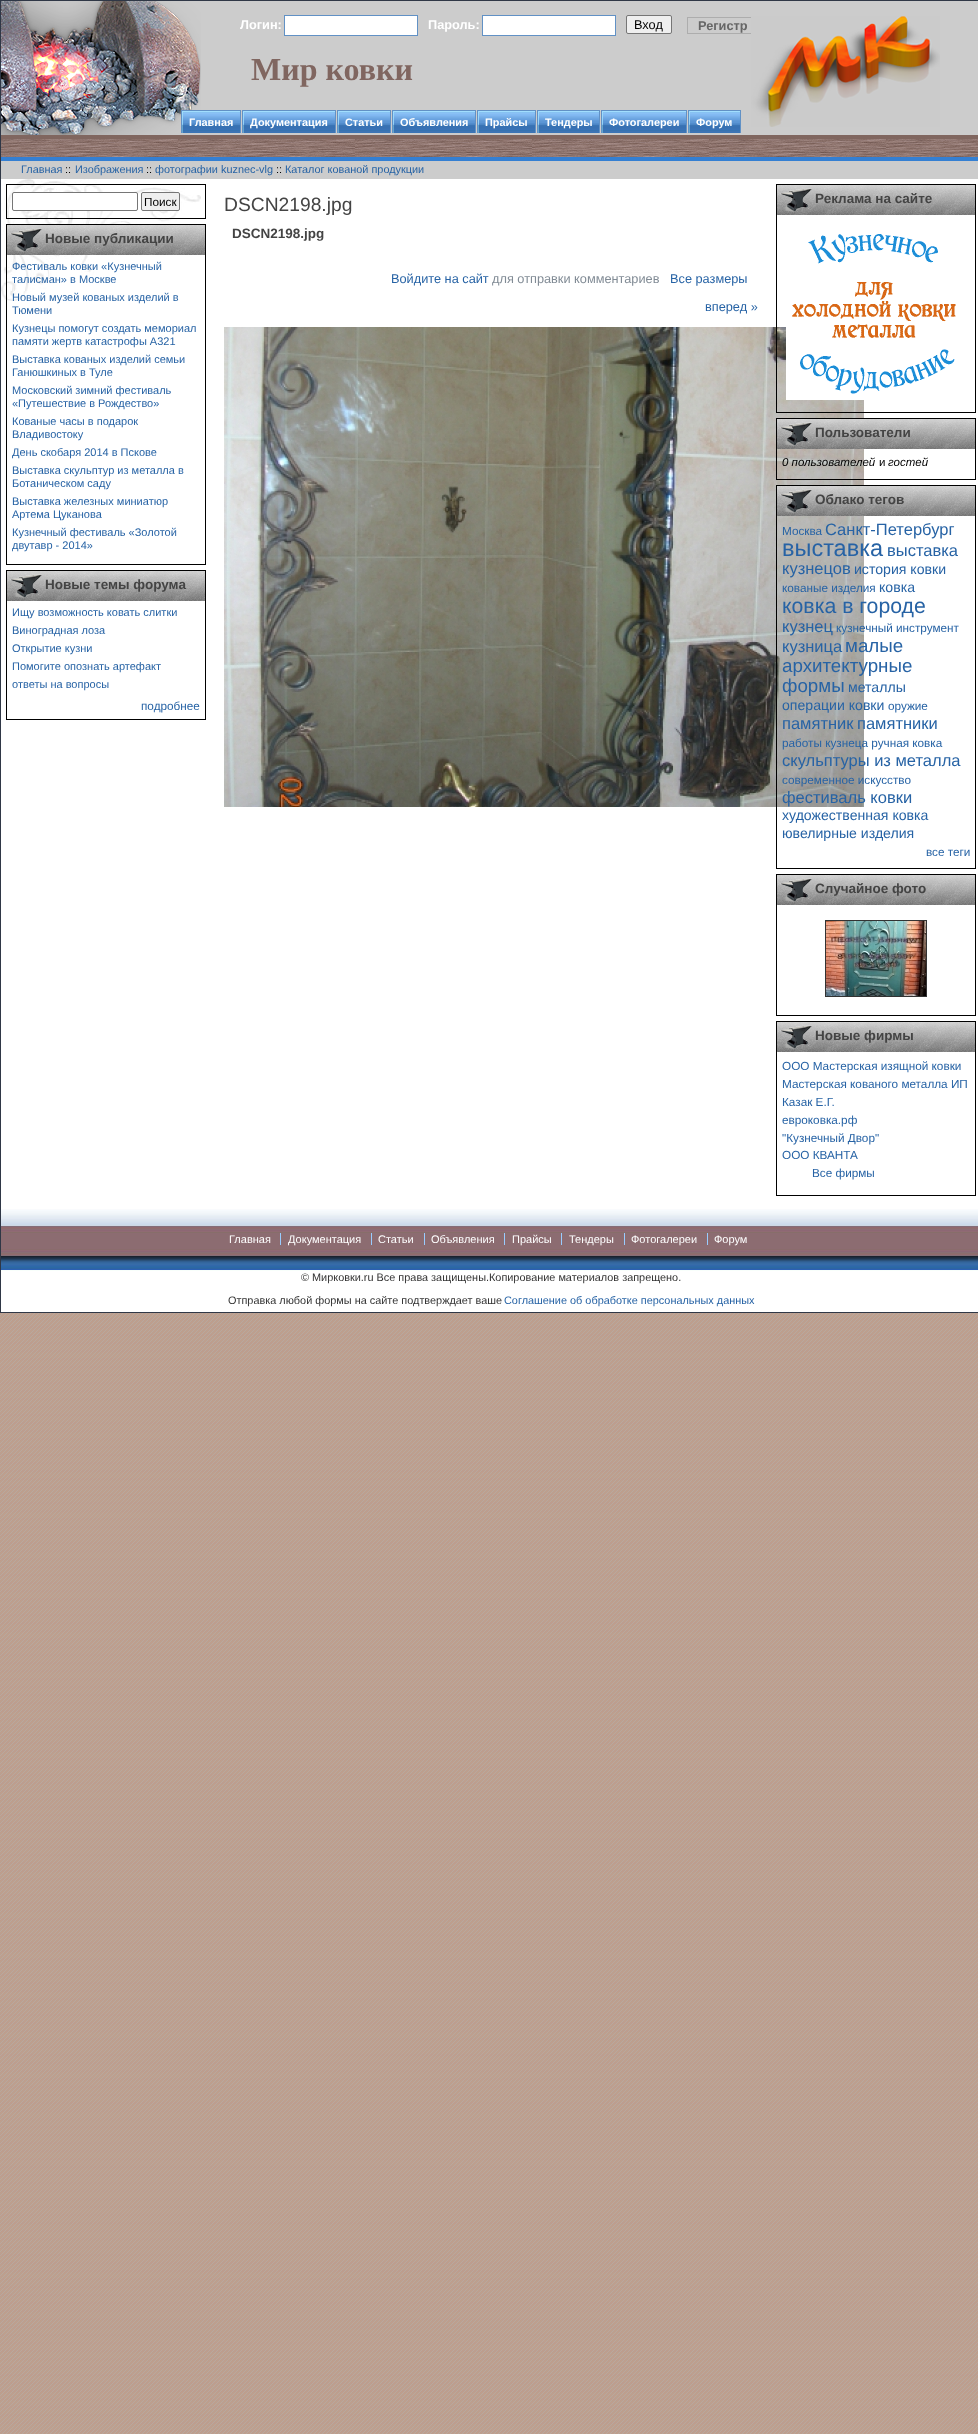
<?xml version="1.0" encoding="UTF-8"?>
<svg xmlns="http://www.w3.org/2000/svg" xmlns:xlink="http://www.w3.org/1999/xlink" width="978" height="2434">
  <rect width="100%" height="100%" fill="#ffffff" />
  <image x="0" y="1313" width="978" height="1121" xlink:href="image1.png" />
  <rect x="0.5" y="0.5" width="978" height="1312" fill="none" stroke="#2f3746" />
  <rect x="1" y="1" width="977" height="178" fill="#cccccc" />
  <rect x="284.5" y="15.5" width="133" height="20" fill="#ffffff" stroke="#6191c5" />
  <rect x="482.5" y="15.5" width="133" height="20" fill="#ffffff" stroke="#6191c5" />
  <rect x="626.5" y="15.5" width="45" height="18" rx="1.5" fill="#efefef" stroke="#767676" />
  <rect x="687.5" y="17.5" width="101" height="16" fill="none" stroke="#adadad" />
  <image x="1" y="1" width="200" height="134" xlink:href="image2.png" />
  <image x="751" y="16" width="189" height="111" xlink:href="image3.png" />
  <rect x="1" y="135" width="977" height="4" fill="#80665f" />
  <image x="182" y="111" width="58" height="22" xlink:href="image4.png" />
  <rect x="181" y="110" width="60" height="1" fill="#6191c5" />
  <rect x="240" y="110" width="1" height="23" fill="#6191c5" />
  <rect x="181" y="110" width="1" height="23" fill="#6191c5" />
  <image x="243" y="111" width="92" height="22" xlink:href="image5.png" />
  <rect x="242" y="110" width="94" height="1" fill="#6191c5" />
  <rect x="335" y="110" width="1" height="23" fill="#6191c5" />
  <rect x="242" y="110" width="1" height="23" fill="#6191c5" />
  <image x="338" y="111" width="52" height="22" xlink:href="image6.png" />
  <rect x="337" y="110" width="54" height="1" fill="#6191c5" />
  <rect x="390" y="110" width="1" height="23" fill="#6191c5" />
  <rect x="337" y="110" width="1" height="23" fill="#6191c5" />
  <image x="393" y="111" width="82" height="22" xlink:href="image7.png" />
  <rect x="392" y="110" width="84" height="1" fill="#6191c5" />
  <rect x="475" y="110" width="1" height="23" fill="#6191c5" />
  <rect x="392" y="110" width="1" height="23" fill="#6191c5" />
  <image x="478" y="111" width="57" height="22" xlink:href="image8.png" />
  <rect x="477" y="110" width="59" height="1" fill="#6191c5" />
  <rect x="535" y="110" width="1" height="23" fill="#6191c5" />
  <rect x="477" y="110" width="1" height="23" fill="#6191c5" />
  <image x="538" y="111" width="61" height="22" xlink:href="image9.png" />
  <rect x="537" y="110" width="63" height="1" fill="#6191c5" />
  <rect x="599" y="110" width="1" height="23" fill="#6191c5" />
  <rect x="537" y="110" width="1" height="23" fill="#6191c5" />
  <image x="602" y="111" width="84" height="22" xlink:href="image10.png" />
  <rect x="601" y="110" width="86" height="1" fill="#6191c5" />
  <rect x="686" y="110" width="1" height="23" fill="#6191c5" />
  <rect x="601" y="110" width="1" height="23" fill="#6191c5" />
  <image x="689" y="111" width="51" height="22" xlink:href="image11.png" />
  <rect x="688" y="110" width="53" height="1" fill="#6191c5" />
  <rect x="740" y="110" width="1" height="23" fill="#6191c5" />
  <rect x="688" y="110" width="1" height="23" fill="#6191c5" />
  <image x="1" y="139" width="977" height="18" xlink:href="image12.png" />
  <rect x="1" y="157" width="977" height="4" fill="#347fd2" />
  <image x="1" y="179" width="200" height="122" xlink:href="image13.png" />
  <rect x="6.5" y="184.5" width="199" height="34" fill="none" stroke="#000000" />
  <rect x="12.5" y="192.5" width="125" height="18" rx="1.5" fill="#ffffff" stroke="#767676" />
  <rect x="141.5" y="192.5" width="38" height="18" rx="1.5" fill="#efefef" stroke="#767676" />
  <rect x="6.5" y="224.5" width="199" height="340" fill="none" stroke="#000000" />
  <image x="7" y="225" width="198" height="30" xlink:href="image14.png" />
  <image x="10" y="228" width="32" height="24" xlink:href="image15.png" />
  <rect x="6.5" y="570.5" width="199" height="149" fill="none" stroke="#000000" />
  <image x="7" y="571" width="198" height="30" xlink:href="image14.png" />
  <image x="10" y="574" width="32" height="24" xlink:href="image15.png" />
  <image x="224" y="327" width="640" height="480" xlink:href="image16.png" />
  <rect x="776.5" y="184.5" width="199" height="228" fill="none" stroke="#000000" />
  <image x="777" y="185" width="198" height="30" xlink:href="image14.png" />
  <image x="780" y="188" width="32" height="24" xlink:href="image15.png" />
  <image x="786" y="234" width="170" height="166" xlink:href="image17.png" />
  <rect x="776.5" y="418.5" width="199" height="61" fill="none" stroke="#000000" />
  <image x="777" y="419" width="198" height="30" xlink:href="image14.png" />
  <image x="780" y="422" width="32" height="24" xlink:href="image15.png" />
  <rect x="776.5" y="485.5" width="199" height="383" fill="none" stroke="#000000" />
  <image x="777" y="486" width="198" height="30" xlink:href="image14.png" />
  <image x="780" y="489" width="32" height="24" xlink:href="image15.png" />
  <rect x="776.5" y="874.5" width="199" height="141" fill="none" stroke="#000000" />
  <image x="777" y="875" width="198" height="30" xlink:href="image14.png" />
  <image x="780" y="878" width="32" height="24" xlink:href="image15.png" />
  <rect x="825.5" y="920.5" width="101" height="76" fill="none" stroke="#333333" />
  <image x="826" y="921" width="100" height="75" xlink:href="image18.png" />
  <rect x="776.5" y="1021.5" width="199" height="174" fill="none" stroke="#000000" />
  <image x="777" y="1022" width="198" height="30" xlink:href="image14.png" />
  <image x="780" y="1025" width="32" height="24" xlink:href="image15.png" />
  <image x="1" y="1209" width="977" height="62" xlink:href="image19.png" />
  <rect x="280" y="1233" width="1" height="12" fill="#99ccff" />
  <rect x="371" y="1233" width="1" height="12" fill="#99ccff" />
  <rect x="424" y="1233" width="1" height="12" fill="#99ccff" />
  <rect x="504" y="1233" width="1" height="12" fill="#99ccff" />
  <rect x="561" y="1233" width="1" height="12" fill="#99ccff" />
  <rect x="624" y="1233" width="1" height="12" fill="#99ccff" />
  <rect x="707" y="1233" width="1" height="12" fill="#99ccff" />
  <text x="240" y="29" style="font-family: Liberation Sans; font-size: 12.75px; font-weight: bold; fill: #ffffff">Логин:</text>
  <text x="428" y="29" style="font-family: Liberation Sans; font-size: 12.75px; font-weight: bold; fill: #ffffff">Пароль:</text>
  <text x="634" y="29" style="font-family: Liberation Sans; font-size: 12.75px; fill: #000000">Вход</text>
  <text x="698" y="30" style="font-family: Liberation Sans; font-size: 12.75px; font-weight: bold; fill: #666666">Регистр</text>
  <text x="251" y="80" style="font-family: Liberation Serif; font-size: 32px; font-weight: bold; fill: #806660">Мир ковки</text>
  <text x="189" y="126" style="font-family: Liberation Sans; font-size: 10.9px; font-weight: bold; fill: #ffffff">Главная</text>
  <text x="250" y="126" style="font-family: Liberation Sans; font-size: 10.9px; font-weight: bold; fill: #ffffff">Документация</text>
  <text x="345" y="126" style="font-family: Liberation Sans; font-size: 10.9px; font-weight: bold; fill: #ffffff">Статьи</text>
  <text x="400" y="126" style="font-family: Liberation Sans; font-size: 10.9px; font-weight: bold; fill: #ffffff">Объявления</text>
  <text x="485" y="126" style="font-family: Liberation Sans; font-size: 10.9px; font-weight: bold; fill: #ffffff">Прайсы</text>
  <text x="545" y="126" style="font-family: Liberation Sans; font-size: 10.9px; font-weight: bold; fill: #ffffff">Тендеры</text>
  <text x="609" y="126" style="font-family: Liberation Sans; font-size: 10.9px; font-weight: bold; fill: #ffffff">Фотогалереи</text>
  <text x="696" y="126" style="font-family: Liberation Sans; font-size: 10.9px; font-weight: bold; fill: #ffffff">Форум</text>
  <text x="21" y="173" style="font-family: Liberation Sans; font-size: 10.9px; fill: #2763a5">Главная</text>
  <text x="65" y="173" style="font-family: Liberation Sans; font-size: 10.9px; fill: #000000">::</text>
  <text x="75" y="173" style="font-family: Liberation Sans; font-size: 10.9px; fill: #2763a5">Изображения</text>
  <text x="146" y="173" style="font-family: Liberation Sans; font-size: 10.9px; fill: #000000">::</text>
  <text x="155" y="173" style="font-family: Liberation Sans; font-size: 10.9px; fill: #2763a5">фотографии kuznec-vlg</text>
  <text x="276" y="173" style="font-family: Liberation Sans; font-size: 10.9px; fill: #000000">::</text>
  <text x="285" y="173" style="font-family: Liberation Sans; font-size: 10.9px; fill: #2763a5">Каталог кованой продукции</text>
  <text x="144" y="206" style="font-family: Liberation Sans; font-size: 11.75px; fill: #000000">Поиск</text>
  <text x="45" y="243" style="font-family: Liberation Sans; font-size: 13.5px; font-weight: bold; fill: #444444">Новые публикации</text>
  <text x="12" y="270" style="font-family: Liberation Sans; font-size: 11px; fill: #2763a5">Фестиваль ковки «Кузнечный</text>
  <text x="12" y="283" style="font-family: Liberation Sans; font-size: 11px; fill: #2763a5">талисман» в Москве</text>
  <text x="12" y="301" style="font-family: Liberation Sans; font-size: 11px; fill: #2763a5">Новый музей кованых изделий в</text>
  <text x="12" y="314" style="font-family: Liberation Sans; font-size: 11px; fill: #2763a5">Тюмени</text>
  <text x="12" y="332" style="font-family: Liberation Sans; font-size: 11px; fill: #2763a5">Кузнецы помогут создать мемориал</text>
  <text x="12" y="345" style="font-family: Liberation Sans; font-size: 11px; fill: #2763a5">памяти жертв катастрофы А321</text>
  <text x="12" y="363" style="font-family: Liberation Sans; font-size: 11px; fill: #2763a5">Выставка кованых изделий семьи</text>
  <text x="12" y="376" style="font-family: Liberation Sans; font-size: 11px; fill: #2763a5">Ганюшкиных в Туле</text>
  <text x="12" y="394" style="font-family: Liberation Sans; font-size: 11px; fill: #2763a5">Московский зимний фестиваль</text>
  <text x="12" y="407" style="font-family: Liberation Sans; font-size: 11px; fill: #2763a5">«Путешествие в Рождество»</text>
  <text x="12" y="425" style="font-family: Liberation Sans; font-size: 11px; fill: #2763a5">Кованые часы в подарок</text>
  <text x="12" y="438" style="font-family: Liberation Sans; font-size: 11px; fill: #2763a5">Владивостоку</text>
  <text x="12" y="456" style="font-family: Liberation Sans; font-size: 11px; fill: #2763a5">День скобаря 2014 в Пскове</text>
  <text x="12" y="474" style="font-family: Liberation Sans; font-size: 11px; fill: #2763a5">Выставка скульптур из металла в</text>
  <text x="12" y="487" style="font-family: Liberation Sans; font-size: 11px; fill: #2763a5">Ботаническом саду</text>
  <text x="12" y="505" style="font-family: Liberation Sans; font-size: 11px; fill: #2763a5">Выставка железных миниатюр</text>
  <text x="12" y="518" style="font-family: Liberation Sans; font-size: 11px; fill: #2763a5">Артема Цуканова</text>
  <text x="12" y="536" style="font-family: Liberation Sans; font-size: 11px; fill: #2763a5">Кузнечный фестиваль «Золотой</text>
  <text x="12" y="549" style="font-family: Liberation Sans; font-size: 11px; fill: #2763a5">двутавр - 2014»</text>
  <text x="45" y="589" style="font-family: Liberation Sans; font-size: 13.5px; font-weight: bold; fill: #444444">Новые темы форума</text>
  <text x="12" y="616" style="font-family: Liberation Sans; font-size: 11px; fill: #2763a5">Ищу возможность ковать слитки</text>
  <text x="12" y="634" style="font-family: Liberation Sans; font-size: 11px; fill: #2763a5">Виноградная лоза</text>
  <text x="12" y="652" style="font-family: Liberation Sans; font-size: 11px; fill: #2763a5">Открытие кузни</text>
  <text x="12" y="670" style="font-family: Liberation Sans; font-size: 11px; fill: #2763a5">Помогите опознать артефакт</text>
  <text x="12" y="688" style="font-family: Liberation Sans; font-size: 11px; fill: #2763a5">ответы на вопросы</text>
  <text x="141" y="710" style="font-family: Liberation Sans; font-size: 11.75px; fill: #2763a5">подробнее</text>
  <text x="224" y="211" style="font-family: Liberation Sans; font-size: 19.25px; fill: #444444">DSCN2198.jpg</text>
  <text x="232" y="238" style="font-family: Liberation Sans; font-size: 13.5px; font-weight: bold; fill: #444444">DSCN2198.jpg</text>
  <text x="391" y="283" style="font-family: Liberation Sans; font-size: 12.75px; fill: #2763a5">Войдите на сайт</text>
  <text x="492" y="283" style="font-family: Liberation Sans; font-size: 12.75px; fill: #818b95">для отправки комментариев</text>
  <text x="670" y="283" style="font-family: Liberation Sans; font-size: 12.75px; fill: #2763a5">Все размеры</text>
  <text x="705" y="311" style="font-family: Liberation Sans; font-size: 12.75px; fill: #2763a5">вперед »</text>
  <text x="815" y="203" style="font-family: Liberation Sans; font-size: 13.5px; font-weight: bold; fill: #444444">Реклама на сайте</text>
  <text x="815" y="437" style="font-family: Liberation Sans; font-size: 13.5px; font-weight: bold; fill: #444444">Пользователи</text>
  <text x="782" y="466" style="font-family: Liberation Sans; font-size: 11.5px; font-style: italic; fill: #000000">0 пользователей</text>
  <text x="879" y="466" style="font-family: Liberation Sans; font-size: 11.5px; fill: #000000">и</text>
  <text x="888" y="466" style="font-family: Liberation Sans; font-size: 11.5px; font-style: italic; fill: #000000">гостей</text>
  <text x="815" y="504" style="font-family: Liberation Sans; font-size: 13.5px; font-weight: bold; fill: #444444">Облако тегов</text>
  <text x="782" y="535" style="font-family: Liberation Sans; font-size: 11.75px; fill: #2763a5">Москва</text>
  <text x="825" y="535" style="font-family: Liberation Sans; font-size: 16.5px; fill: #2763a5">Санкт-Петербург</text>
  <text x="782" y="556" style="font-family: Liberation Sans; font-size: 23.5px; fill: #2763a5">выставка</text>
  <text x="887" y="556" style="font-family: Liberation Sans; font-size: 16.5px; fill: #2763a5">выставка</text>
  <text x="782" y="574" style="font-family: Liberation Sans; font-size: 16.5px; fill: #2763a5">кузнецов</text>
  <text x="854" y="574" style="font-family: Liberation Sans; font-size: 14.1px; fill: #2763a5">история ковки</text>
  <text x="782" y="592" style="font-family: Liberation Sans; font-size: 11.75px; fill: #2763a5">кованые изделия</text>
  <text x="879" y="592" style="font-family: Liberation Sans; font-size: 14.1px; fill: #2763a5">ковка</text>
  <text x="782" y="613" style="font-family: Liberation Sans; font-size: 21.25px; fill: #2763a5">ковка в городе</text>
  <text x="782" y="632" style="font-family: Liberation Sans; font-size: 16.5px; fill: #2763a5">кузнец</text>
  <text x="836" y="632" style="font-family: Liberation Sans; font-size: 11.75px; fill: #2763a5">кузнечный инструмент</text>
  <text x="782" y="652" style="font-family: Liberation Sans; font-size: 16.5px; fill: #2763a5">кузница</text>
  <text x="845" y="652" style="font-family: Liberation Sans; font-size: 18.75px; fill: #2763a5">малые</text>
  <text x="782" y="672" style="font-family: Liberation Sans; font-size: 18.75px; fill: #2763a5">архитектурные</text>
  <text x="782" y="692" style="font-family: Liberation Sans; font-size: 18.75px; fill: #2763a5">формы</text>
  <text x="848" y="692" style="font-family: Liberation Sans; font-size: 14.1px; fill: #2763a5">металлы</text>
  <text x="782" y="710" style="font-family: Liberation Sans; font-size: 14.1px; fill: #2763a5">операции ковки</text>
  <text x="888" y="710" style="font-family: Liberation Sans; font-size: 11.75px; fill: #2763a5">оружие</text>
  <text x="782" y="729" style="font-family: Liberation Sans; font-size: 16.5px; fill: #2763a5">памятник</text>
  <text x="857" y="729" style="font-family: Liberation Sans; font-size: 16.5px; fill: #2763a5">памятники</text>
  <text x="782" y="747" style="font-family: Liberation Sans; font-size: 11.75px; fill: #2763a5">работы кузнеца ручная ковка</text>
  <text x="782" y="766" style="font-family: Liberation Sans; font-size: 16.5px; fill: #2763a5">скульптуры из металла</text>
  <text x="782" y="784" style="font-family: Liberation Sans; font-size: 11.75px; fill: #2763a5">современное искусство</text>
  <text x="782" y="803" style="font-family: Liberation Sans; font-size: 16.5px; fill: #2763a5">фестиваль ковки</text>
  <text x="782" y="820" style="font-family: Liberation Sans; font-size: 14.1px; fill: #2763a5">художественная ковка</text>
  <text x="782" y="838" style="font-family: Liberation Sans; font-size: 14.1px; fill: #2763a5">ювелирные изделия</text>
  <text x="926" y="856" style="font-family: Liberation Sans; font-size: 11.75px; fill: #2763a5">все теги</text>
  <text x="815" y="893" style="font-family: Liberation Sans; font-size: 13.5px; font-weight: bold; fill: #444444">Случайное фото</text>
  <text x="815" y="1040" style="font-family: Liberation Sans; font-size: 13.5px; font-weight: bold; fill: #444444">Новые фирмы</text>
  <text x="782" y="1070" style="font-family: Liberation Sans; font-size: 11.75px; fill: #2763a5">ООО Мастерская изящной ковки</text>
  <text x="782" y="1088" style="font-family: Liberation Sans; font-size: 11.75px; fill: #2763a5">Мастерская кованого металла ИП</text>
  <text x="782" y="1106" style="font-family: Liberation Sans; font-size: 11.75px; fill: #2763a5">Казак Е.Г.</text>
  <text x="782" y="1124" style="font-family: Liberation Sans; font-size: 11.75px; fill: #2763a5">евроковка.рф</text>
  <text x="782" y="1142" style="font-family: Liberation Sans; font-size: 11.75px; fill: #2763a5">"Кузнечный Двор"</text>
  <text x="782" y="1159" style="font-family: Liberation Sans; font-size: 11.75px; fill: #2763a5">ООО КВАНТА</text>
  <text x="812" y="1177" style="font-family: Liberation Sans; font-size: 11.75px; fill: #2763a5">Все фирмы</text>
  <text x="229" y="1243" style="font-family: Liberation Sans; font-size: 11px; fill: #ffffff">Главная</text>
  <text x="288" y="1243" style="font-family: Liberation Sans; font-size: 11px; fill: #ffffff">Документация</text>
  <text x="378" y="1243" style="font-family: Liberation Sans; font-size: 11px; fill: #ffffff">Статьи</text>
  <text x="431" y="1243" style="font-family: Liberation Sans; font-size: 11px; fill: #ffffff">Объявления</text>
  <text x="512" y="1243" style="font-family: Liberation Sans; font-size: 11px; fill: #ffffff">Прайсы</text>
  <text x="569" y="1243" style="font-family: Liberation Sans; font-size: 11px; fill: #ffffff">Тендеры</text>
  <text x="631" y="1243" style="font-family: Liberation Sans; font-size: 11px; fill: #ffffff">Фотогалереи</text>
  <text x="714" y="1243" style="font-family: Liberation Sans; font-size: 11px; fill: #ffffff">Форум</text>
  <text x="301" y="1281" style="font-family: Liberation Sans; font-size: 10.9px; fill: #333333">© Мирковки.ru Все права защищены.Копирование материалов запрещено.</text>
  <text x="228" y="1304" style="font-family: Liberation Sans; font-size: 10.9px; fill: #333333">Отправка любой формы на сайте подтверждает ваше</text>
  <text x="504" y="1304" style="font-family: Liberation Sans; font-size: 10.9px; fill: #2763a5">Соглашение об обработке персональных данных</text>
</svg>
